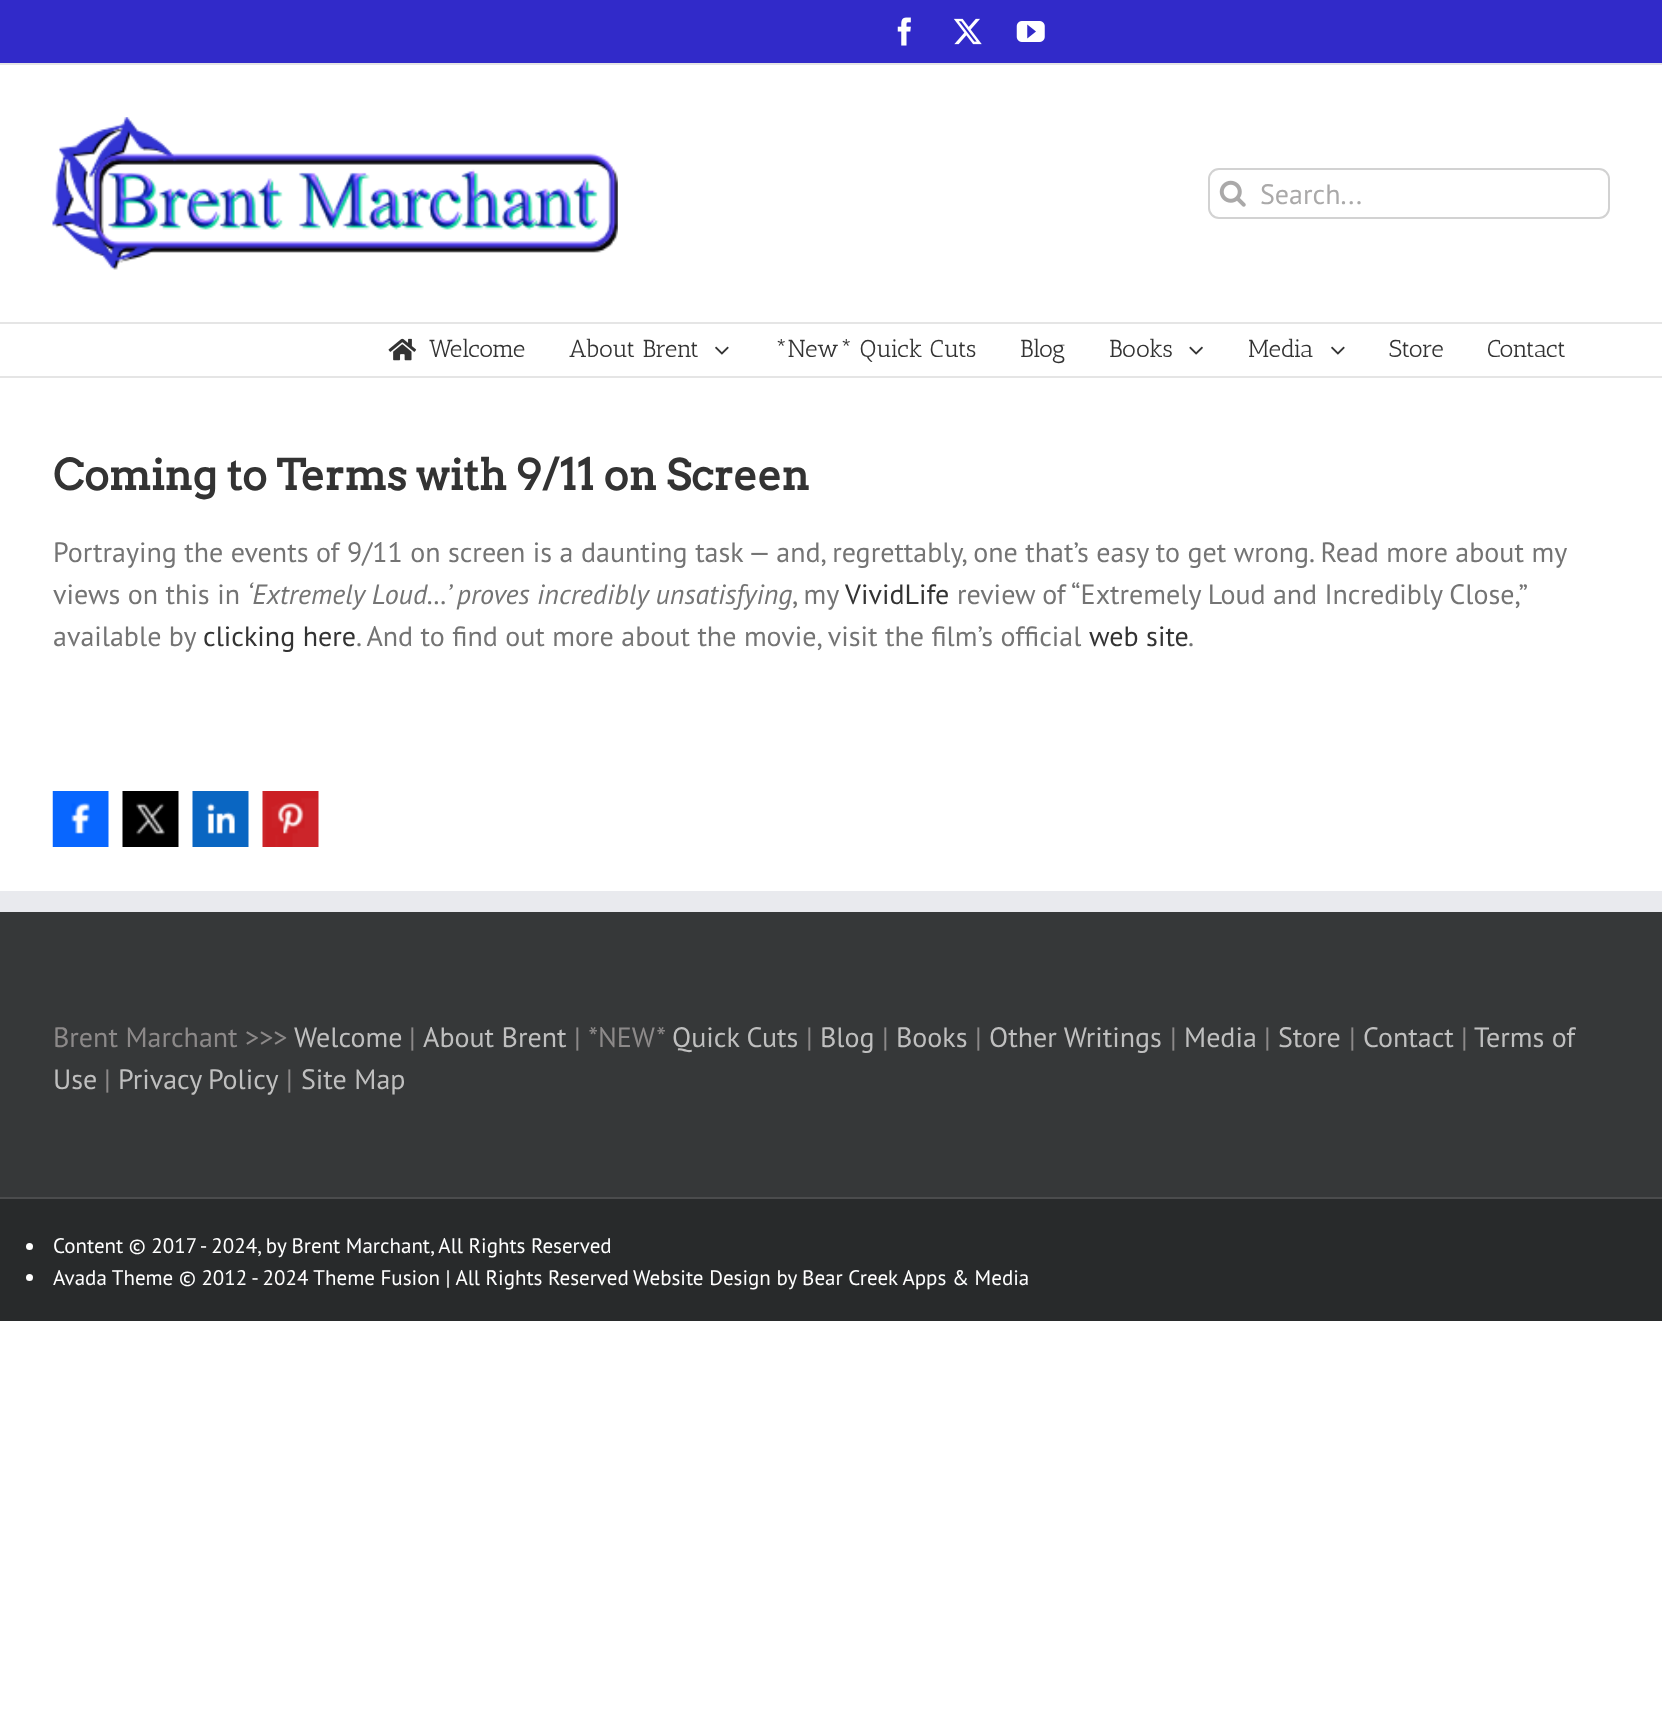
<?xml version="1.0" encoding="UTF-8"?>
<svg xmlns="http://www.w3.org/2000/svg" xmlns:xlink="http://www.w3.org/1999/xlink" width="1662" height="1723">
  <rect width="100%" height="100%" fill="#ffffff" />
  <rect width="1662" height="63" fill="#312ac9" />
  <rect y="63" width="1662" height="2" fill="#e5e5e5" />
  <image x="897" y="17" width="14" height="29" xlink:href="image1.png" />
  <image x="953" y="18" width="29" height="27" xlink:href="image2.png" />
  <image x="1016" y="21" width="29" height="21" xlink:href="image3.png" />
  <rect y="322" width="1662" height="2" fill="#e5e5e5" />
  <image x="52" y="117" width="566" height="153" xlink:href="image4.png" />
  <rect x="1209" y="169" width="400" height="49" rx="10" fill="none" stroke="#d2d2d2" stroke-width="2" />
  <image x="1219" y="180" width="27" height="27" xlink:href="image5.png" />
  <rect y="376" width="1662" height="2" fill="#e5e5e5" />
  <image x="388" y="338" width="29" height="23" xlink:href="image6.png" />
  <image x="715" y="346" width="14" height="9" xlink:href="image7.png" />
  <image x="1189" y="346" width="14" height="9" xlink:href="image8.png" />
  <image x="1331" y="346" width="14" height="9" xlink:href="image7.png" />
  <image x="52" y="791" width="57" height="56" xlink:href="image9.png" />
  <image x="122" y="791" width="57" height="56" xlink:href="image10.png" />
  <image x="192" y="791" width="57" height="56" xlink:href="image11.png" />
  <image x="262" y="791" width="57" height="56" xlink:href="image12.png" />
  <rect y="912" width="1662" height="285" fill="#363839" />
  <rect y="891" width="1662" height="21" fill="#e9eaee" />
  <rect y="1199" width="1662" height="122" fill="#282a2b" />
  <rect y="1197" width="1662" height="2" fill="#4b4c4d" />
  <circle cx="29.5" cy="1246.5" r="3.5" fill="#ffffff" />
  <circle cx="29.5" cy="1277.5" r="3.5" fill="#ffffff" />
  <text x="1260" y="204" style="font-family: PT Sans; font-size: 28px; fill: #aaa9a9">Search...</text>
  <text x="429" y="357" style="font-family: Antic Slab; font-size: 24.5px; fill: #333333">Welcome</text>
  <text x="569" y="357" style="font-family: Antic Slab; font-size: 24.5px; fill: #333333">About Brent</text>
  <text x="774" y="357" style="font-family: Antic Slab; font-size: 24.5px; fill: #333333">*New* Quick Cuts</text>
  <text x="1020" y="357" style="font-family: Antic Slab; font-size: 24.5px; fill: #333333">Blog</text>
  <text x="1109" y="357" style="font-family: Antic Slab; font-size: 24.5px; fill: #333333">Books</text>
  <text x="1248" y="357" style="font-family: Antic Slab; font-size: 24.5px; fill: #333333">Media</text>
  <text x="1389" y="357" style="font-family: Antic Slab; font-size: 24.5px; fill: #333333">Store</text>
  <text x="1487" y="357" style="font-family: Antic Slab; font-size: 24.5px; fill: #333333">Contact</text>
  <text x="53" y="490" style="font-family: Arvo; font-size: 42px; font-weight: bold; fill: #333333">Coming to Terms with 9/11 on Screen</text>
  <text x="53" y="562" style="font-family: PT Sans; font-size: 28px; fill: #747474">Portraying the events of 9/11 on screen is a daunting task — and, regrettably, one that’s easy to get wrong. Read more about my</text>
  <text x="53" y="604" style="font-family: PT Sans; font-size: 28px; fill: #747474">views on this in</text>
  <text x="247" y="604" style="font-family: PT Sans; font-size: 28px; font-style: italic; fill: #747474">‘Extremely Loud…’ proves incredibly unsatisfying</text>
  <text x="792" y="604" style="font-family: PT Sans; font-size: 28px; fill: #747474">, my</text>
  <text x="845" y="604" style="font-family: PT Sans; font-size: 28px; fill: #333333">VividLife</text>
  <text x="957" y="604" word-spacing="-0.25" style="font-family: PT Sans; font-size: 28px; fill: #747474">review of “Extremely Loud and Incredibly Close,”</text>
  <text x="53" y="646" style="font-family: PT Sans; font-size: 28px; fill: #747474">available by</text>
  <text x="203" y="646" style="font-family: PT Sans; font-size: 28px; fill: #333333">clicking here</text>
  <text x="356" y="646" style="font-family: PT Sans; font-size: 28px; fill: #747474">. And to find out more about the movie, visit the film’s official</text>
  <text x="1089" y="646" style="font-family: PT Sans; font-size: 28px; fill: #333333">web site</text>
  <text x="1188" y="646" style="font-family: PT Sans; font-size: 28px; fill: #747474">.</text>
  <text x="53" y="1047" style="font-family: PT Sans; font-size: 28px; fill: #8c8989">Brent Marchant &gt;&gt;&gt;</text>
  <text x="294" y="1047" style="font-family: PT Sans; font-size: 28px; fill: #bfbfbf">Welcome</text>
  <text x="409" y="1047" style="font-family: PT Sans; font-size: 28px; fill: #8c8989">|</text>
  <text x="423" y="1047" style="font-family: PT Sans; font-size: 28px; fill: #bfbfbf">About Brent</text>
  <text x="574" y="1047" style="font-family: PT Sans; font-size: 28px; fill: #8c8989">| *NEW*</text>
  <text x="672" y="1047" style="font-family: PT Sans; font-size: 28px; fill: #bfbfbf">Quick Cuts</text>
  <text x="806" y="1047" style="font-family: PT Sans; font-size: 28px; fill: #8c8989">|</text>
  <text x="820" y="1047" style="font-family: PT Sans; font-size: 28px; fill: #bfbfbf">Blog</text>
  <text x="882" y="1047" style="font-family: PT Sans; font-size: 28px; fill: #8c8989">|</text>
  <text x="896" y="1047" style="font-family: PT Sans; font-size: 28px; fill: #bfbfbf">Books</text>
  <text x="975" y="1047" style="font-family: PT Sans; font-size: 28px; fill: #8c8989">|</text>
  <text x="989" y="1047" style="font-family: PT Sans; font-size: 28px; fill: #bfbfbf">Other Writings</text>
  <text x="1170" y="1047" style="font-family: PT Sans; font-size: 28px; fill: #8c8989">|</text>
  <text x="1184" y="1047" style="font-family: PT Sans; font-size: 28px; fill: #bfbfbf">Media</text>
  <text x="1264" y="1047" style="font-family: PT Sans; font-size: 28px; fill: #8c8989">|</text>
  <text x="1278" y="1047" style="font-family: PT Sans; font-size: 28px; fill: #bfbfbf">Store</text>
  <text x="1349" y="1047" style="font-family: PT Sans; font-size: 28px; fill: #8c8989">|</text>
  <text x="1363" y="1047" style="font-family: PT Sans; font-size: 28px; fill: #bfbfbf">Contact</text>
  <text x="1461" y="1047" style="font-family: PT Sans; font-size: 28px; fill: #8c8989">|</text>
  <text x="1474" y="1047" style="font-family: PT Sans; font-size: 28px; fill: #bfbfbf">Terms of</text>
  <text x="53" y="1089" style="font-family: PT Sans; font-size: 28px; fill: #bfbfbf">Use</text>
  <text x="104" y="1089" style="font-family: PT Sans; font-size: 28px; fill: #8c8989">|</text>
  <text x="118" y="1089" word-spacing="-1" style="font-family: PT Sans; font-size: 28px; fill: #bfbfbf">Privacy Policy</text>
  <text x="286" y="1089" style="font-family: PT Sans; font-size: 28px; fill: #8c8989">|</text>
  <text x="301" y="1089" style="font-family: PT Sans; font-size: 28px; fill: #bfbfbf">Site Map</text>
  <text x="53" y="1253" style="font-family: PT Sans; font-size: 21px; fill: #ffffff">Content © 2017 - 2024, by Brent Marchant, All Rights Reserved</text>
  <text x="53" y="1285" style="font-family: PT Sans; font-size: 21px; fill: #ffffff">Avada Theme © 2012 - 2024 Theme Fusion | All Rights Reserved</text>
  <text x="633" y="1285" style="font-family: PT Sans; font-size: 21px; fill: #ffffff">Website Design by Bear Creek Apps &amp; Media</text>
</svg>
